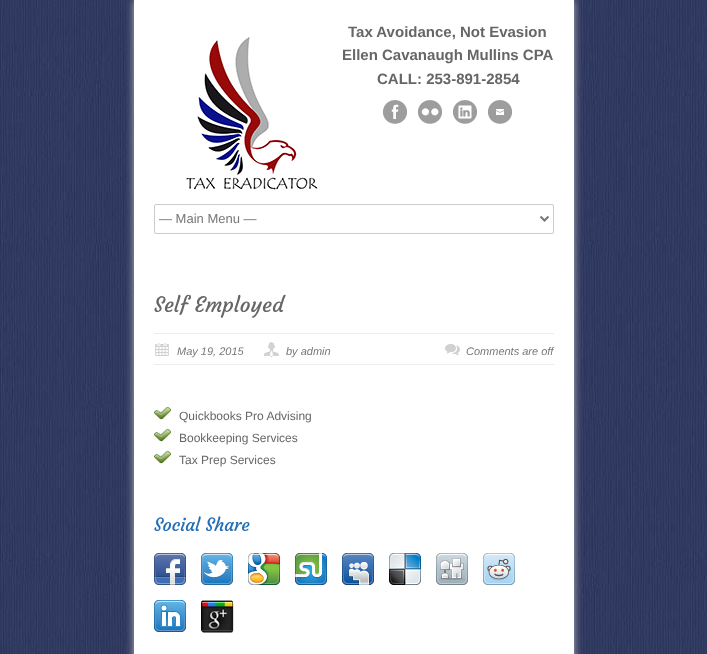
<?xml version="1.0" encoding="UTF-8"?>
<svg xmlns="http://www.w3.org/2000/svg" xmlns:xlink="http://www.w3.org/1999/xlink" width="707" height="654">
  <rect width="100%" height="100%" fill="#ffffff" />
  <image x="0" y="0" width="707" height="654" xlink:href="image1.png" />
  <rect x="134" width="440" height="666" fill="#bbbbbb" filter="blur(4px)" />
  <rect x="134" width="440" height="654" fill="#ffffff" />
  <image x="186" y="37" width="132" height="153" xlink:href="image2.png" />
  <image x="383" y="100" width="24" height="24" xlink:href="image3.png" />
  <image x="418" y="100" width="24" height="24" xlink:href="image4.png" />
  <image x="453" y="100" width="24" height="24" xlink:href="image5.png" />
  <image x="488" y="100" width="24" height="24" xlink:href="image6.png" />
  <rect x="154.5" y="204.5" width="399" height="29" rx="1.5" fill="none" stroke="#cccccc" />
  <path d="M 540.5 216.5 l 4 4 l 4 -4" fill="none" stroke="#777777" stroke-width="2" />
  <rect x="154" y="333" width="400" height="1" fill="#ececec" />
  <rect x="154" y="364" width="400" height="1" fill="#ececec" />
  <image x="155" y="343" width="14" height="13" xlink:href="image7.png" />
  <image x="264" y="342" width="15" height="15" xlink:href="image8.png" />
  <image x="445" y="344" width="15" height="11" xlink:href="image9.png" />
  <image x="154" y="406" width="17" height="14" xlink:href="image10.png" />
  <image x="154" y="428" width="17" height="14" xlink:href="image10.png" />
  <image x="154" y="450" width="17" height="14" xlink:href="image10.png" />
  <image x="154" y="553" width="32" height="32" xlink:href="image11.png" />
  <image x="201" y="553" width="32" height="32" xlink:href="image12.png" />
  <image x="248" y="553" width="32" height="32" xlink:href="image13.png" />
  <image x="295" y="553" width="32" height="32" xlink:href="image14.png" />
  <image x="342" y="553" width="32" height="32" xlink:href="image15.png" />
  <image x="389" y="553" width="32" height="32" xlink:href="image16.png" />
  <image x="436" y="553" width="32" height="32" xlink:href="image17.png" />
  <image x="483" y="553" width="32" height="32" xlink:href="image18.png" />
  <image x="154" y="600" width="32" height="32" xlink:href="image19.png" />
  <image x="201" y="600" width="33" height="33" xlink:href="image20.png" />
  <text x="348" y="37" style="font-family: Liberation Sans; font-size: 15px; font-weight: bold; fill: #666666">Tax Avoidance, Not Evasion</text>
  <text x="342" y="60" style="font-family: Liberation Sans; font-size: 15px; font-weight: bold; fill: #666666">Ellen Cavanaugh Mullins CPA</text>
  <text x="377" y="84" style="font-family: Liberation Sans; font-size: 15px; font-weight: bold; fill: #666666">CALL: 253-891-2854</text>
  <text x="159" y="223" style="font-family: Liberation Sans; font-size: 13px; fill: #777777">— Main Menu —</text>
  <text x="154" y="312" style="font-family: Courgette; font-size: 21px; fill: #666666">Self Employed</text>
  <text x="177" y="355" style="font-family: Liberation Sans; font-size: 11px; font-style: italic; fill: #777777">May 19, 2015</text>
  <text x="286" y="355" style="font-family: Liberation Sans; font-size: 11px; font-style: italic; fill: #777777">by admin</text>
  <text x="466" y="355" style="font-family: Liberation Sans; font-size: 11px; font-style: italic; fill: #777777">Comments are off</text>
  <text x="179" y="420" style="font-family: Liberation Sans; font-size: 12px; fill: #666666">Quickbooks Pro Advising</text>
  <text x="179" y="442" style="font-family: Liberation Sans; font-size: 12px; fill: #666666">Bookkeeping Services</text>
  <text x="179" y="464" style="font-family: Liberation Sans; font-size: 12px; fill: #666666">Tax Prep Services</text>
  <text x="154" y="531" style="font-family: Courgette; font-size: 18px; fill: #226eb5">Social Share</text>
</svg>
